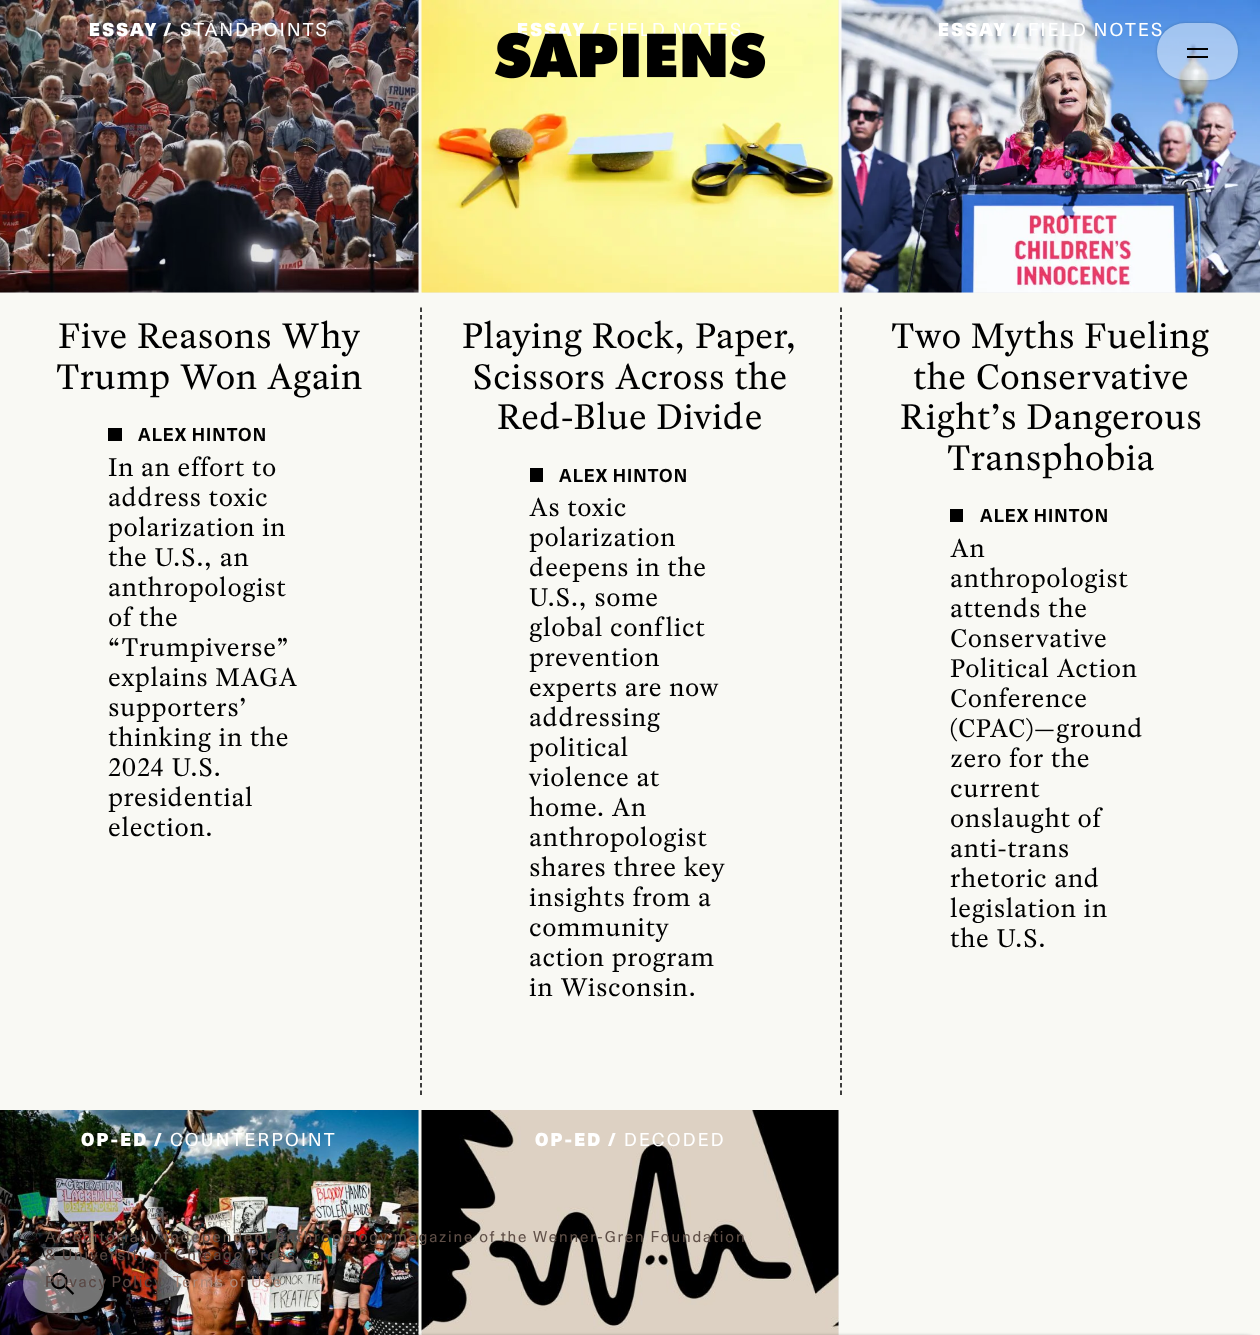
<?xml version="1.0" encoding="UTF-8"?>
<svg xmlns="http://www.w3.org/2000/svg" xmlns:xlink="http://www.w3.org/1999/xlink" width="1260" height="1335">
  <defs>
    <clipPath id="clip1"><path d="M 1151 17 h 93 v 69 h -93 z m 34.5 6 h 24 c 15.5 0 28.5 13 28.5 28.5 c 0 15.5 -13 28.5 -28.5 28.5 h -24 c -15.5 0 -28.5 -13 -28.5 -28.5 c 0 -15.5 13 -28.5 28.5 -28.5 z" clip-rule="evenodd" /></clipPath>
    <clipPath id="clip2"><path d="M 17 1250 h 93 v 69 h -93 z m 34.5 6 h 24 c 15.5 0 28.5 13 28.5 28.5 c 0 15.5 -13 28.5 -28.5 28.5 h -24 c -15.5 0 -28.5 -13 -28.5 -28.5 c 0 -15.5 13 -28.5 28.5 -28.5 z" clip-rule="evenodd" /></clipPath>
  </defs>
  <rect width="100%" height="100%" fill="#f9f9f4" />
  <rect x="842" y="292" width="418" height="1" fill="#eeeeee" />
  <image x="841" y="0" width="419" height="293" xlink:href="image3.png" />
  <g clip-path="url(#clip1)">
    <rect x="1157" y="23" width="81" height="57" rx="28.5" fill="#000000" fill-opacity="0.2" filter="blur(1.5px)" />
  </g>
  <rect width="419" height="293" fill="#eeeeee" />
  <image x="0" y="0" width="419" height="293" xlink:href="image1.png" />
  <rect x="108" y="428" width="14" height="13" fill="#000000" />
  <rect x="422" width="417" height="293" fill="#eeeeee" />
  <image x="421" y="0" width="418" height="293" xlink:href="image2.png" />
  <path d="M 421 307.5 v 787.5" fill="none" stroke="#000000" stroke-width="1.5" stroke-dasharray="4.5 3.03" />
  <rect x="530" y="468" width="13" height="14" fill="#000000" />
  <path d="M 841 307.5 v 787.5" fill="none" stroke="#000000" stroke-width="1.5" stroke-dasharray="4.5 3.03" />
  <rect x="950" y="509" width="13" height="13" fill="#000000" />
  <rect x="418" y="1110" width="1" height="225" fill="#eeeeee" />
  <image x="0" y="1110" width="419" height="225" xlink:href="image4.png" />
  <rect x="838" y="1110" width="1" height="225" fill="#eeeeee" />
  <image x="421" y="1110" width="418" height="225" xlink:href="image5.png" />
  <g clip-path="url(#clip2)">
    <rect x="23" y="1256" width="81" height="57" rx="28.5" fill="#000000" fill-opacity="0.2" filter="blur(1.5px)" />
  </g>
  <rect x="23" y="1256" width="81" height="57" rx="28.5" fill="#ffffff" fill-opacity="0.45" />
  <image x="51" y="1272" width="24" height="23" xlink:href="image7.png" />
  <rect y="1335" width="1260" height="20" rx="15" fill="#000000" fill-opacity="0.2" filter="blur(1.5px)" />
  <text x="89" y="36" style="font-family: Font; font-size: 18px; font-weight: 900; letter-spacing: 2.25px; fill: #ffffff">ESSAY /</text>
  <text x="180" y="36" style="font-family: Font; font-size: 18px; letter-spacing: 2.25px; fill: #ffffff">STANDPOINTS</text>
  <text x="58" y="348" style="font-family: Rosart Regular; font-size: 37.5px; letter-spacing: 0.25px; fill: #000000">Five Reasons Why</text>
  <text x="56" y="389" style="font-family: Rosart Regular; font-size: 37.5px; letter-spacing: 0.25px; fill: #000000">Trump Won Again</text>
  <text x="138" y="441" style="font-family: Font; font-size: 18px; font-weight: bold; letter-spacing: 1.1px; fill: #000000">ALEX HINTON</text>
  <text x="108" y="476" style="font-family: Rosart Regular; font-size: 27px; letter-spacing: 0.5px; fill: #000000">In an effort to</text>
  <text x="108" y="506" style="font-family: Rosart Regular; font-size: 27px; letter-spacing: 0.5px; fill: #000000">address toxic</text>
  <text x="108" y="536" style="font-family: Rosart Regular; font-size: 27px; letter-spacing: 0.5px; fill: #000000">polarization in</text>
  <text x="108" y="566" style="font-family: Rosart Regular; font-size: 27px; letter-spacing: 0.5px; fill: #000000">the U.S., an</text>
  <text x="108" y="596" style="font-family: Rosart Regular; font-size: 27px; letter-spacing: 0.5px; fill: #000000">anthropologist</text>
  <text x="108" y="626" style="font-family: Rosart Regular; font-size: 27px; letter-spacing: 0.5px; fill: #000000">of the</text>
  <text x="108" y="656" style="font-family: Rosart Regular; font-size: 27px; letter-spacing: 0.5px; fill: #000000">“Trumpiverse”</text>
  <text x="108" y="686" style="font-family: Rosart Regular; font-size: 27px; letter-spacing: 0.5px; fill: #000000">explains MAGA</text>
  <text x="108" y="716" style="font-family: Rosart Regular; font-size: 27px; letter-spacing: 0.5px; fill: #000000">supporters’</text>
  <text x="108" y="746" style="font-family: Rosart Regular; font-size: 27px; letter-spacing: 0.5px; fill: #000000">thinking in the</text>
  <text x="108" y="776" style="font-family: Rosart Regular; font-size: 27px; letter-spacing: 0.5px; fill: #000000">2024 U.S.</text>
  <text x="108" y="806" style="font-family: Rosart Regular; font-size: 27px; letter-spacing: 0.5px; fill: #000000">presidential</text>
  <text x="108" y="836" style="font-family: Rosart Regular; font-size: 27px; letter-spacing: 0.5px; fill: #000000">election.</text>
  <text x="517" y="36" style="font-family: Font; font-size: 18px; font-weight: 900; letter-spacing: 2.25px; fill: #ffffff">ESSAY /</text>
  <text x="607" y="36" style="font-family: Font; font-size: 18px; letter-spacing: 2.25px; fill: #ffffff">FIELD NOTES</text>
  <text x="462" y="348" style="font-family: Rosart Regular; font-size: 37.5px; letter-spacing: 0.25px; fill: #000000">Playing Rock, Paper,</text>
  <text x="472" y="389" style="font-family: Rosart Regular; font-size: 37.5px; letter-spacing: 0.25px; fill: #000000">Scissors Across the</text>
  <text x="497" y="429" style="font-family: Rosart Regular; font-size: 37.5px; letter-spacing: 0.25px; fill: #000000">Red-Blue Divide</text>
  <text x="559" y="482" style="font-family: Font; font-size: 18px; font-weight: bold; letter-spacing: 1.1px; fill: #000000">ALEX HINTON</text>
  <text x="529" y="516" style="font-family: Rosart Regular; font-size: 27px; letter-spacing: 0.5px; fill: #000000">As toxic</text>
  <text x="529" y="546" style="font-family: Rosart Regular; font-size: 27px; letter-spacing: 0.5px; fill: #000000">polarization</text>
  <text x="529" y="576" style="font-family: Rosart Regular; font-size: 27px; letter-spacing: 0.5px; fill: #000000">deepens in the</text>
  <text x="529" y="606" style="font-family: Rosart Regular; font-size: 27px; letter-spacing: 0.5px; fill: #000000">U.S., some</text>
  <text x="529" y="636" style="font-family: Rosart Regular; font-size: 27px; letter-spacing: 0.5px; fill: #000000">global conflict</text>
  <text x="529" y="666" style="font-family: Rosart Regular; font-size: 27px; letter-spacing: 0.5px; fill: #000000">prevention</text>
  <text x="529" y="696" style="font-family: Rosart Regular; font-size: 27px; letter-spacing: 0.5px; fill: #000000">experts are now</text>
  <text x="529" y="726" style="font-family: Rosart Regular; font-size: 27px; letter-spacing: 0.5px; fill: #000000">addressing</text>
  <text x="529" y="756" style="font-family: Rosart Regular; font-size: 27px; letter-spacing: 0.5px; fill: #000000">political</text>
  <text x="529" y="786" style="font-family: Rosart Regular; font-size: 27px; letter-spacing: 0.5px; fill: #000000">violence at</text>
  <text x="529" y="816" style="font-family: Rosart Regular; font-size: 27px; letter-spacing: 0.5px; fill: #000000">home. An</text>
  <text x="529" y="846" style="font-family: Rosart Regular; font-size: 27px; letter-spacing: 0.5px; fill: #000000">anthropologist</text>
  <text x="529" y="876" style="font-family: Rosart Regular; font-size: 27px; letter-spacing: 0.5px; fill: #000000">shares three key</text>
  <text x="529" y="906" style="font-family: Rosart Regular; font-size: 27px; letter-spacing: 0.5px; fill: #000000">insights from a</text>
  <text x="529" y="936" style="font-family: Rosart Regular; font-size: 27px; letter-spacing: 0.5px; fill: #000000">community</text>
  <text x="529" y="966" style="font-family: Rosart Regular; font-size: 27px; letter-spacing: 0.5px; fill: #000000">action program</text>
  <text x="529" y="996" style="font-family: Rosart Regular; font-size: 27px; letter-spacing: 0.5px; fill: #000000">in Wisconsin.</text>
  <text x="938" y="36" style="font-family: Font; font-size: 18px; font-weight: 900; letter-spacing: 2.25px; fill: #ffffff">ESSAY /</text>
  <text x="1028" y="36" style="font-family: Font; font-size: 18px; letter-spacing: 2.25px; fill: #ffffff">FIELD NOTES</text>
  <rect x="1157" y="23" width="81" height="57" rx="28.5" fill="#ffffff" fill-opacity="0.45" />
  <rect x="1187" y="56" width="21" height="2" fill="#000000" />
  <rect x="1187" y="48" width="21" height="2" fill="#000000" />
  <text x="891" y="348" style="font-family: Rosart Regular; font-size: 37.5px; letter-spacing: 0.25px; fill: #000000">Two Myths Fueling</text>
  <text x="913" y="389" style="font-family: Rosart Regular; font-size: 37.5px; letter-spacing: 0.25px; fill: #000000">the Conservative</text>
  <text x="900" y="429" style="font-family: Rosart Regular; font-size: 37.5px; letter-spacing: 0.25px; fill: #000000">Right’s Dangerous</text>
  <text x="947" y="470" style="font-family: Rosart Regular; font-size: 37.5px; letter-spacing: 0.25px; fill: #000000">Transphobia</text>
  <text x="980" y="522" style="font-family: Font; font-size: 18px; font-weight: bold; letter-spacing: 1.1px; fill: #000000">ALEX HINTON</text>
  <text x="950" y="557" style="font-family: Rosart Regular; font-size: 27px; letter-spacing: 0.5px; fill: #000000">An</text>
  <text x="950" y="587" style="font-family: Rosart Regular; font-size: 27px; letter-spacing: 0.5px; fill: #000000">anthropologist</text>
  <text x="950" y="617" style="font-family: Rosart Regular; font-size: 27px; letter-spacing: 0.5px; fill: #000000">attends the</text>
  <text x="950" y="647" style="font-family: Rosart Regular; font-size: 27px; letter-spacing: 0.5px; fill: #000000">Conservative</text>
  <text x="950" y="677" style="font-family: Rosart Regular; font-size: 27px; letter-spacing: 0.5px; fill: #000000">Political Action</text>
  <text x="950" y="707" style="font-family: Rosart Regular; font-size: 27px; letter-spacing: 0.5px; fill: #000000">Conference</text>
  <text x="950" y="737" style="font-family: Rosart Regular; font-size: 27px; letter-spacing: 0.5px; fill: #000000">(CPAC)—ground</text>
  <text x="950" y="767" style="font-family: Rosart Regular; font-size: 27px; letter-spacing: 0.5px; fill: #000000">zero for the</text>
  <text x="950" y="797" style="font-family: Rosart Regular; font-size: 27px; letter-spacing: 0.5px; fill: #000000">current</text>
  <text x="950" y="827" style="font-family: Rosart Regular; font-size: 27px; letter-spacing: 0.5px; fill: #000000">onslaught of</text>
  <text x="950" y="857" style="font-family: Rosart Regular; font-size: 27px; letter-spacing: 0.5px; fill: #000000">anti-trans</text>
  <text x="950" y="887" style="font-family: Rosart Regular; font-size: 27px; letter-spacing: 0.5px; fill: #000000">rhetoric and</text>
  <text x="950" y="917" style="font-family: Rosart Regular; font-size: 27px; letter-spacing: 0.5px; fill: #000000">legislation in</text>
  <text x="950" y="947" style="font-family: Rosart Regular; font-size: 27px; letter-spacing: 0.5px; fill: #000000">the U.S.</text>
  <text x="81" y="1146" style="font-family: Font; font-size: 18px; font-weight: 900; letter-spacing: 2.25px; fill: #ffffff">OP-ED /</text>
  <text x="170" y="1146" style="font-family: Font; font-size: 18px; letter-spacing: 2.25px; fill: #ffffff">COUNTERPOINT</text>
  <text x="535" y="1146" style="font-family: Font; font-size: 18px; font-weight: 900; letter-spacing: 2.25px; fill: #ffffff">OP-ED /</text>
  <text x="624" y="1146" style="font-family: Font; font-size: 18px; letter-spacing: 2.25px; fill: #ffffff">DECODED</text>
  <image x="495" y="32" width="271" height="47" xlink:href="image6.png" />
  <text x="45" y="1242" style="font-family: Font; font-size: 15px; letter-spacing: 1.88px; fill: #605048">An editorially independent anthropology magazine of the Wenner-Gren Foundation</text>
  <text x="45" y="1260" style="font-family: Font; font-size: 15px; letter-spacing: 1.88px; fill: #594743">&amp; University of Chicago Press</text>
  <text x="45" y="1287" word-spacing="-1" style="font-family: Font; font-size: 15px; letter-spacing: 1.88px; fill: #594743">Privacy Policy</text>
  <text x="173" y="1287" style="font-family: Font; font-size: 15px; letter-spacing: 1.88px; fill: #b08a7a">Terms of Use</text>
</svg>
